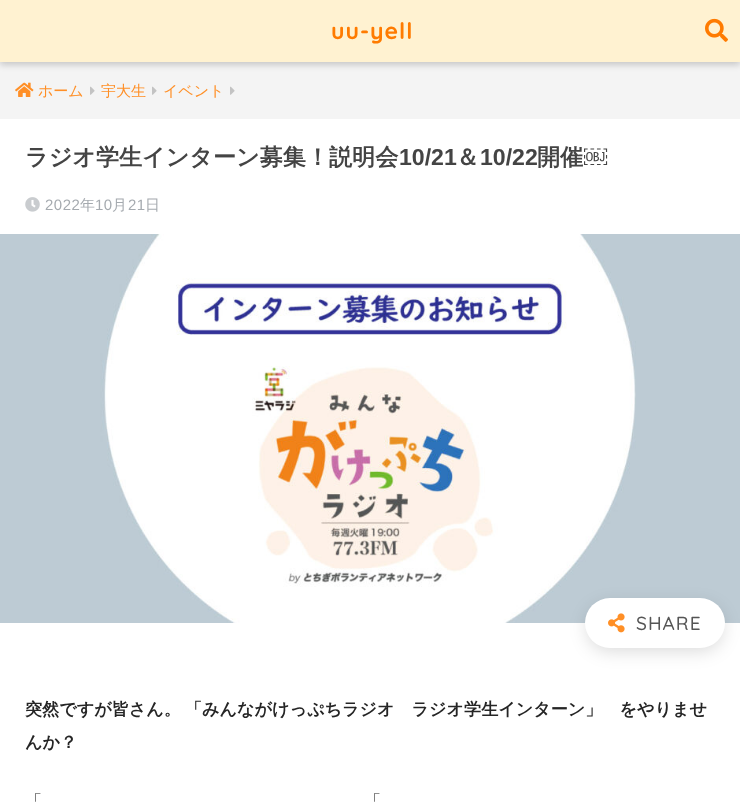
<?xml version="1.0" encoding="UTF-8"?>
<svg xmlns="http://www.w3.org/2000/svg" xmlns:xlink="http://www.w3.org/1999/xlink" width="740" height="803">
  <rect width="100%" height="100%" fill="#ffffff" />
  <rect y="62" width="740" height="57" fill="#f4f4f4" />
  <rect y="3" width="740" height="62" fill="#000000" fill-opacity="0.18" filter="blur(3px)" />
  <rect width="740" height="62" fill="#fff2d1" />
  <image x="705" y="18" width="23" height="24" xlink:href="image1.png" />
  <image x="15" y="82" width="19" height="15" xlink:href="image2.png" />
  <image x="90" y="86" width="5" height="9" xlink:href="image3.png" />
  <image x="152" y="86" width="5" height="9" xlink:href="image3.png" />
  <image x="230" y="86" width="5" height="9" xlink:href="image3.png" />
  <image x="25" y="197" width="15" height="15" xlink:href="image4.png" />
  <image x="0" y="234" width="740" height="389" xlink:href="image5.png" />
  <rect x="587" y="605" width="136" height="46" rx="23" fill="#000000" fill-opacity="0.15" filter="blur(9px)" />
  <rect x="585" y="598" width="140" height="50" rx="25" fill="#ffffff" />
  <image x="608" y="613" width="17" height="20" xlink:href="image6.png" />
  <text x="331" y="39" style="font-family: Quicksand; font-size: 23px; font-weight: bold; letter-spacing: 1px; fill: #ff7b00">uu-yell</text>
  <text x="38" y="96" style="font-family: WenQuanYi Zen Hei; font-size: 15px; font-weight: 500; fill: #ff8f26">ホーム</text>
  <text x="101" y="96" style="font-family: WenQuanYi Zen Hei; font-size: 15px; font-weight: 500; fill: #ff8f26">宇大生</text>
  <text x="163" y="96" style="font-family: WenQuanYi Zen Hei; font-size: 15px; font-weight: 500; fill: #ff8f26">イベント</text>
  <text x="25" y="165" style="font-family: WenQuanYi Zen Hei; font-size: 23.1px; font-weight: bold; fill: #444444">ラジオ学生インターン募集！説明会</text>
  <text x="399" y="165" style="font-family: Liberation Sans; font-size: 23.1px; font-weight: bold; fill: #444444">10/21</text>
  <text x="456" y="165" style="font-family: WenQuanYi Zen Hei; font-size: 23.1px; font-weight: bold; fill: #444444">＆</text>
  <text x="480" y="165" style="font-family: Liberation Sans; font-size: 23.1px; font-weight: bold; fill: #444444">10/22</text>
  <text x="537" y="165" style="font-family: WenQuanYi Zen Hei; font-size: 23.1px; font-weight: bold; fill: #444444">開催</text>
  <text x="584" y="165" style="font-family: Liberation Sans; font-size: 23.1px; font-weight: bold; fill: #444444">￼</text>
  <text x="45" y="210" style="font-family: Liberation Sans; font-size: 15px; letter-spacing: 0.5px; fill: #a5aaaf">2022</text>
  <text x="80" y="210" style="font-family: WenQuanYi Zen Hei; font-size: 15px; font-weight: 500; letter-spacing: 0.5px; fill: #a5aaaf">年</text>
  <text x="95" y="210" style="font-family: Liberation Sans; font-size: 15px; letter-spacing: 0.5px; fill: #a5aaaf">10</text>
  <text x="112" y="210" style="font-family: WenQuanYi Zen Hei; font-size: 15px; font-weight: 500; letter-spacing: 0.5px; fill: #a5aaaf">月</text>
  <text x="128" y="210" style="font-family: Liberation Sans; font-size: 15px; letter-spacing: 0.5px; fill: #a5aaaf">21</text>
  <text x="145" y="210" style="font-family: WenQuanYi Zen Hei; font-size: 15px; font-weight: 500; letter-spacing: 0.5px; fill: #a5aaaf">日</text>
  <text x="636" y="630" style="font-family: Quicksand; font-size: 19px; font-weight: 500; letter-spacing: 1px; fill: #555555">SHARE</text>
  <text x="25" y="715" word-spacing="-1" style="font-family: WenQuanYi Zen Hei; font-size: 17.1px; font-weight: bold; fill: #252525">突然ですが皆さん。 「みんながけっぷちラジオ　ラジオ学生インターン」　をやりませ</text>
  <text x="25" y="748" style="font-family: WenQuanYi Zen Hei; font-size: 17.1px; font-weight: bold; fill: #252525">んか？</text>
  <text x="25" y="807" word-spacing="-1" style="font-family: WenQuanYi Zen Hei; font-size: 17.1px; font-weight: 500; fill: #252525">「</text>
  <text x="364" y="807" word-spacing="-1" style="font-family: WenQuanYi Zen Hei; font-size: 17.1px; font-weight: 500; fill: #252525">「</text>
</svg>
